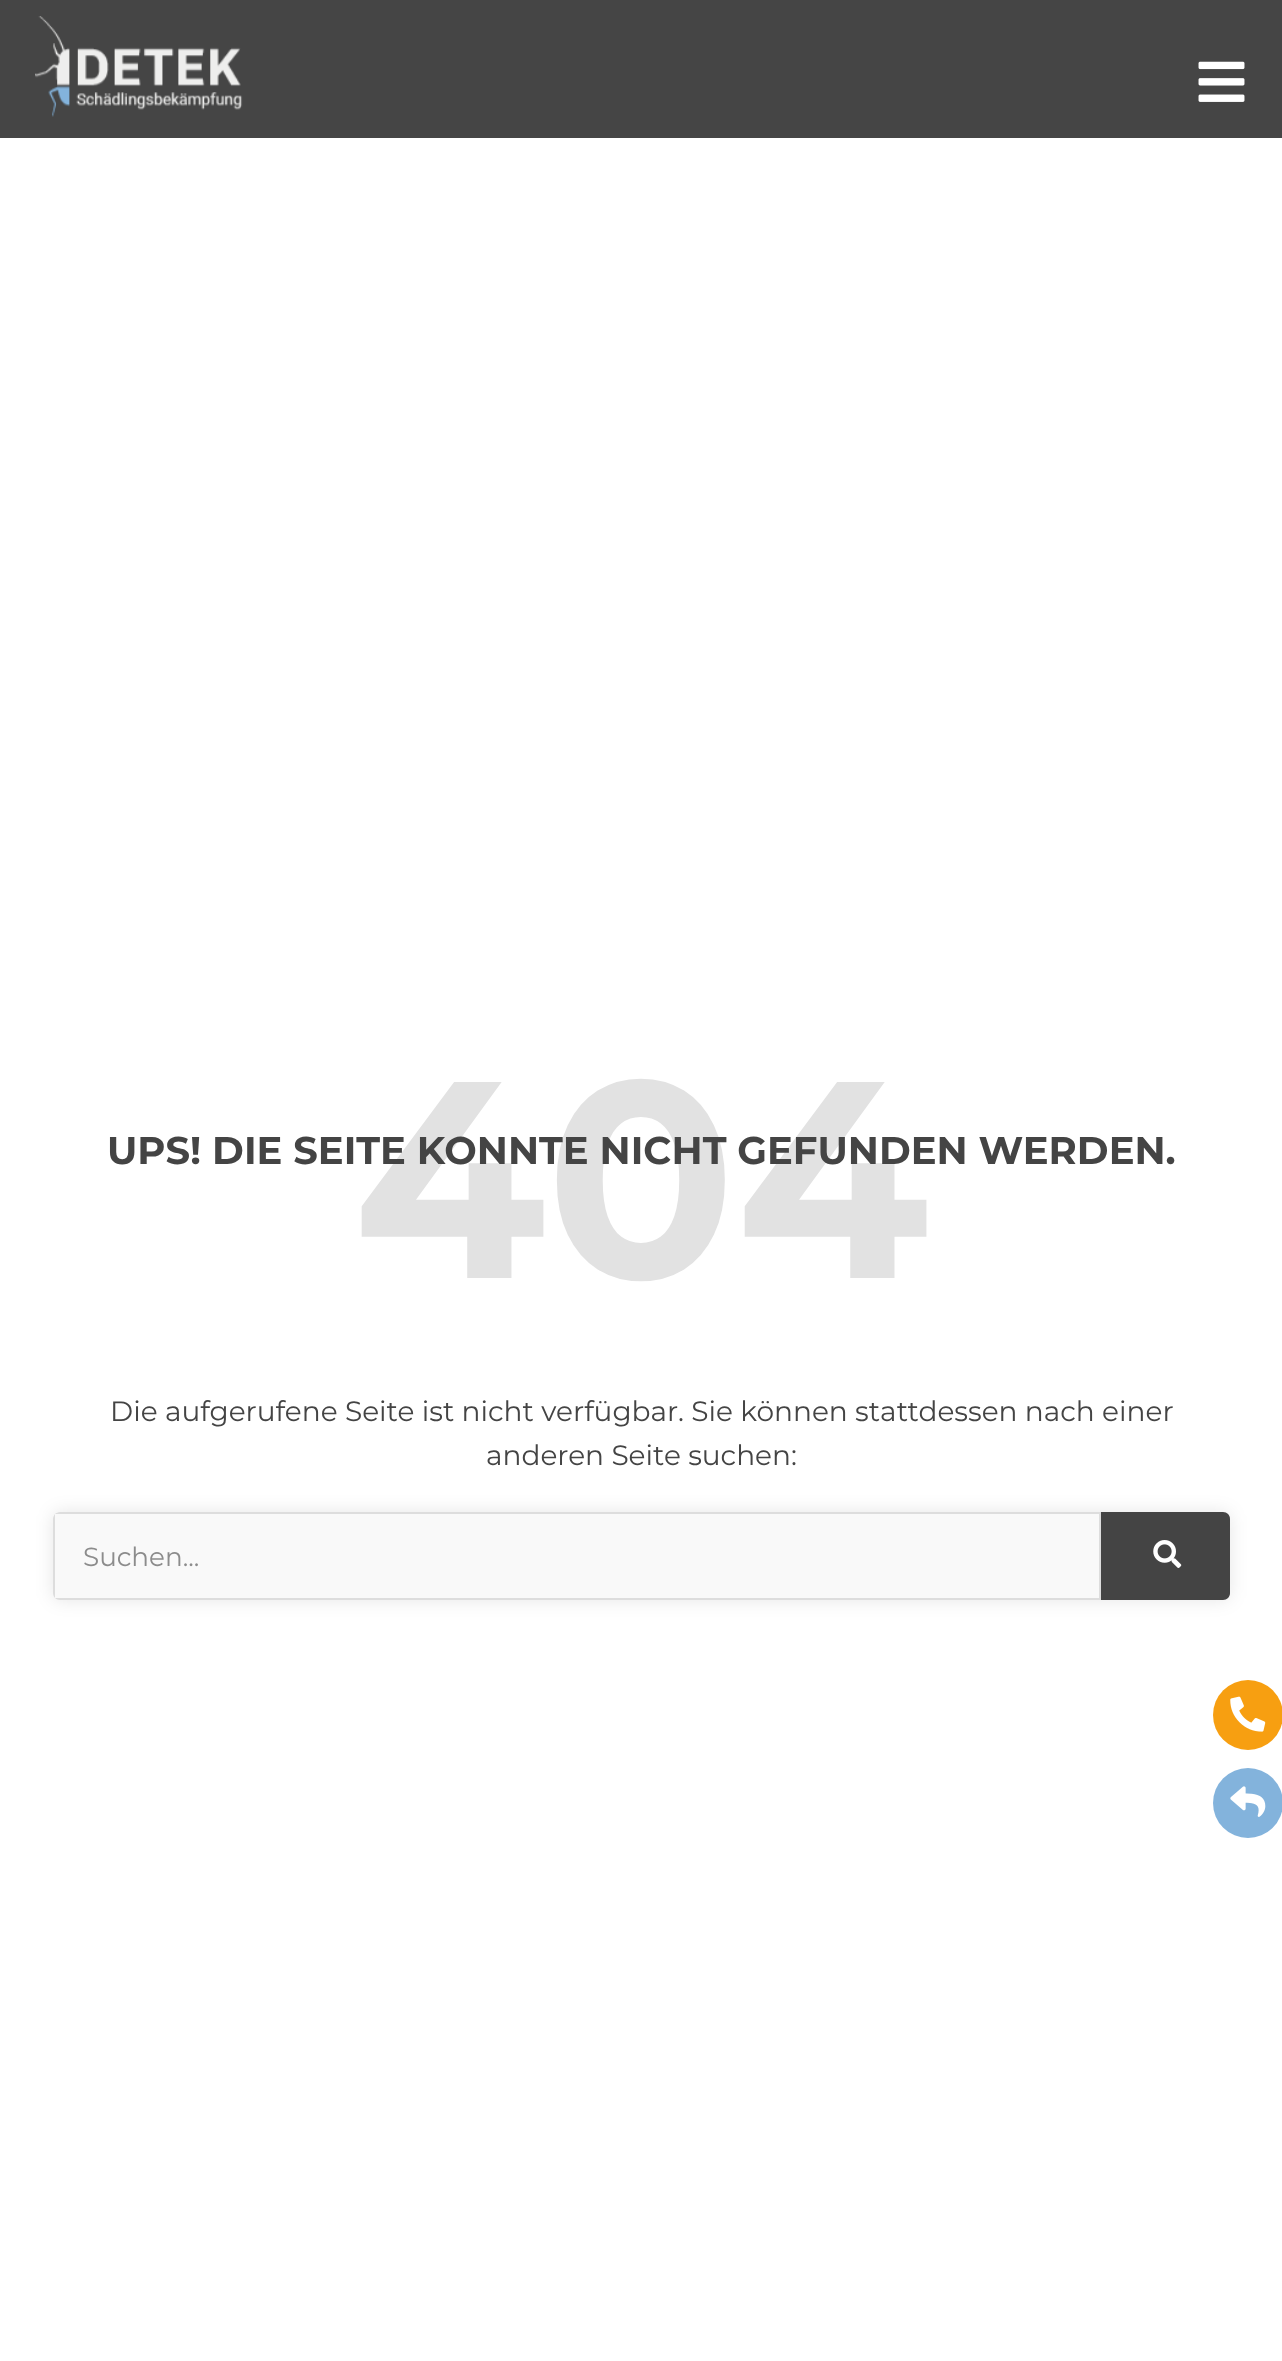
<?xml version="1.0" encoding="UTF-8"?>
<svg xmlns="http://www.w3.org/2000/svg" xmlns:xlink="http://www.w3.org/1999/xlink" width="1282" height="2361">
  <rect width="100%" height="100%" fill="#ffffff" />
  <rect width="1282" height="138" fill="#454545" />
  <image x="35" y="16" width="208" height="101" xlink:href="image1.png" />
  <image x="1198" y="61" width="47" height="41" xlink:href="image2.png" />
  <rect x="53" y="1512" width="1177" height="88" rx="7" fill="#000000" fill-opacity="0.1" filter="blur(9px)" />
  <path d="M 60 1512 h 1041 v 88 h -1041 c -4 0 -7 -3 -7 -7 v -74 c 0 -4 3 -7 7 -7 z" fill="#f9f9f9" />
  <path d="M 53 1519 v 74 c 0 2 1 4 2 5 v -84 c -1 1 -2 3 -2 5 z m 7 -7 c -2 0 -4 1 -5 2 h 1044 v 84 h -1044 c 1 1 3 2 5 2 h 1041 v -88 z" fill="#dddddd" fill-rule="evenodd" />
  <path d="M 1101 1512 h 122 c 4 0 7 3 7 7 v 74 c 0 4 -3 7 -7 7 h -122 z" fill="#444444" />
  <image x="1153" y="1540" width="29" height="28" xlink:href="image3.png" />
  <circle cx="1248" cy="1715" r="35" fill="#f79f11" />
  <image x="1230" y="1696" width="36" height="36" xlink:href="image4.png" />
  <circle cx="1248" cy="1803" r="35" fill="#83b3dc" />
  <image x="1230" y="1786" width="36" height="31" xlink:href="image5.png" />
  <text x="353" y="1278" style="font-family: Montserrat; font-size: 280px; font-weight: bold; fill: #e2e2e2">404</text>
  <text x="107" y="1164" style="font-family: Montserrat; font-size: 38.5px; font-weight: bold; fill: #444444">UPS! DIE SEITE KONNTE NICHT GEFUNDEN WERDEN.</text>
  <text x="110" y="1421" style="font-family: Montserrat; font-size: 28px; fill: #444444">Die aufgerufene Seite ist nicht verfügbar. Sie können stattdessen nach einer</text>
  <text x="486" y="1465" style="font-family: Montserrat; font-size: 28px; fill: #444444">anderen Seite suchen:</text>
  <text x="83" y="1566" style="font-family: Montserrat; font-size: 26.25px; fill: #8c8c8c">Suchen...</text>
</svg>
